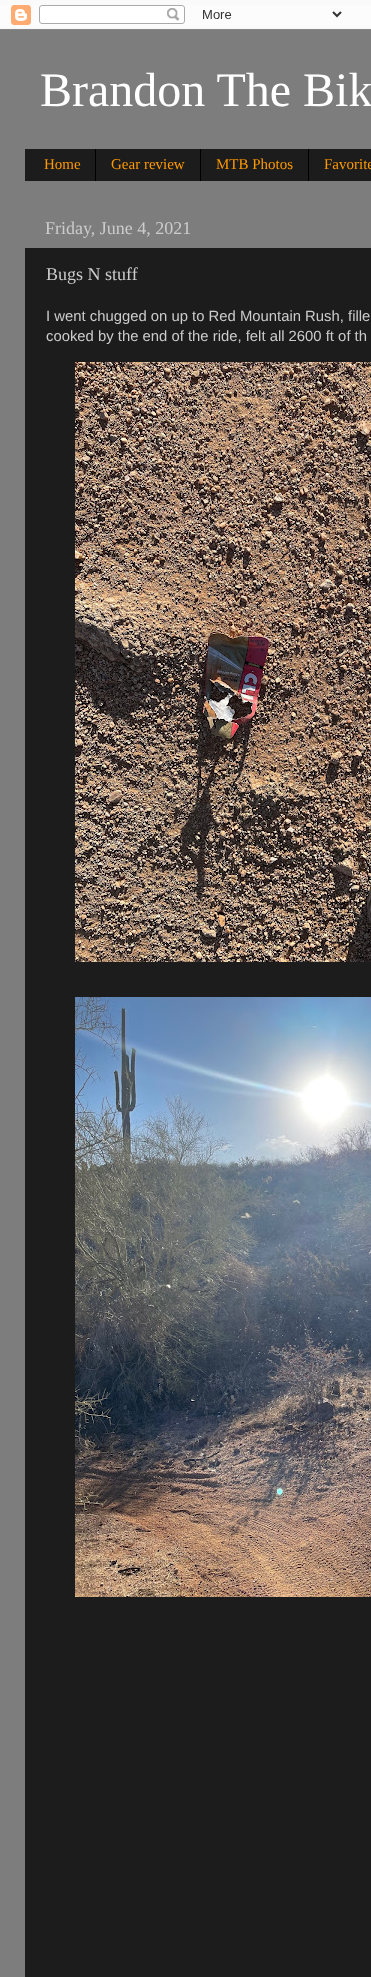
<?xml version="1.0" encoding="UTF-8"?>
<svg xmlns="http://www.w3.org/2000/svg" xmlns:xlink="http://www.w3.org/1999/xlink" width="371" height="1977">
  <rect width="100%" height="100%" fill="#fafafa" />
  <rect y="30" width="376" height="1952" fill="#000000" fill-opacity="0.15" filter="blur(1.5px)" />
  <image x="0" y="5" width="371" height="25" xlink:href="image1.png" />
  <rect y="30" width="371" height="1947" fill="#7d7d7d" />
  <rect x="25" y="149" width="346" height="32" fill="#1c1c1c" />
  <rect x="95" y="149" width="1" height="32" fill="#000000" />
  <rect x="200" y="149" width="1" height="32" fill="#000000" />
  <rect x="308" y="149" width="1" height="32" fill="#000000" />
  <rect x="25" y="248" width="346" height="1729" fill="#1c1c1c" />
  <image x="75" y="362" width="296" height="600" xlink:href="image2.png" />
  <image x="75" y="997" width="296" height="600" xlink:href="image3.png" />
  <text x="40" y="106" style="font-family: Liberation Serif; font-size: 48px; fill: #ffffff">Brandon The Bik</text>
  <text x="44" y="169" style="font-family: Liberation Serif; font-size: 15px; fill: #ff9900">Home</text>
  <text x="111" y="169" style="font-family: Liberation Serif; font-size: 15px; fill: #ff9900">Gear review</text>
  <text x="216" y="169" style="font-family: Liberation Serif; font-size: 15px; fill: #ff9900">MTB Photos</text>
  <text x="324" y="169" style="font-family: Liberation Serif; font-size: 15px; fill: #ff9900">Favorite</text>
  <text x="45" y="234" style="font-family: Liberation Serif; font-size: 18px; fill: #cccccc">Friday, June 4, 2021</text>
  <text x="46" y="280" style="font-family: Liberation Serif; font-size: 18px; fill: #cccccc">Bugs N stuff</text>
  <text x="46" y="321" style="font-family: Liberation Sans; font-size: 14.85px; fill: #cccccc">I went chugged on up to Red Mountain Rush, fille</text>
  <text x="46" y="341" style="font-family: Liberation Sans; font-size: 14.85px; fill: #cccccc">cooked by the end of the ride, felt all 2600 ft of th</text>
</svg>
